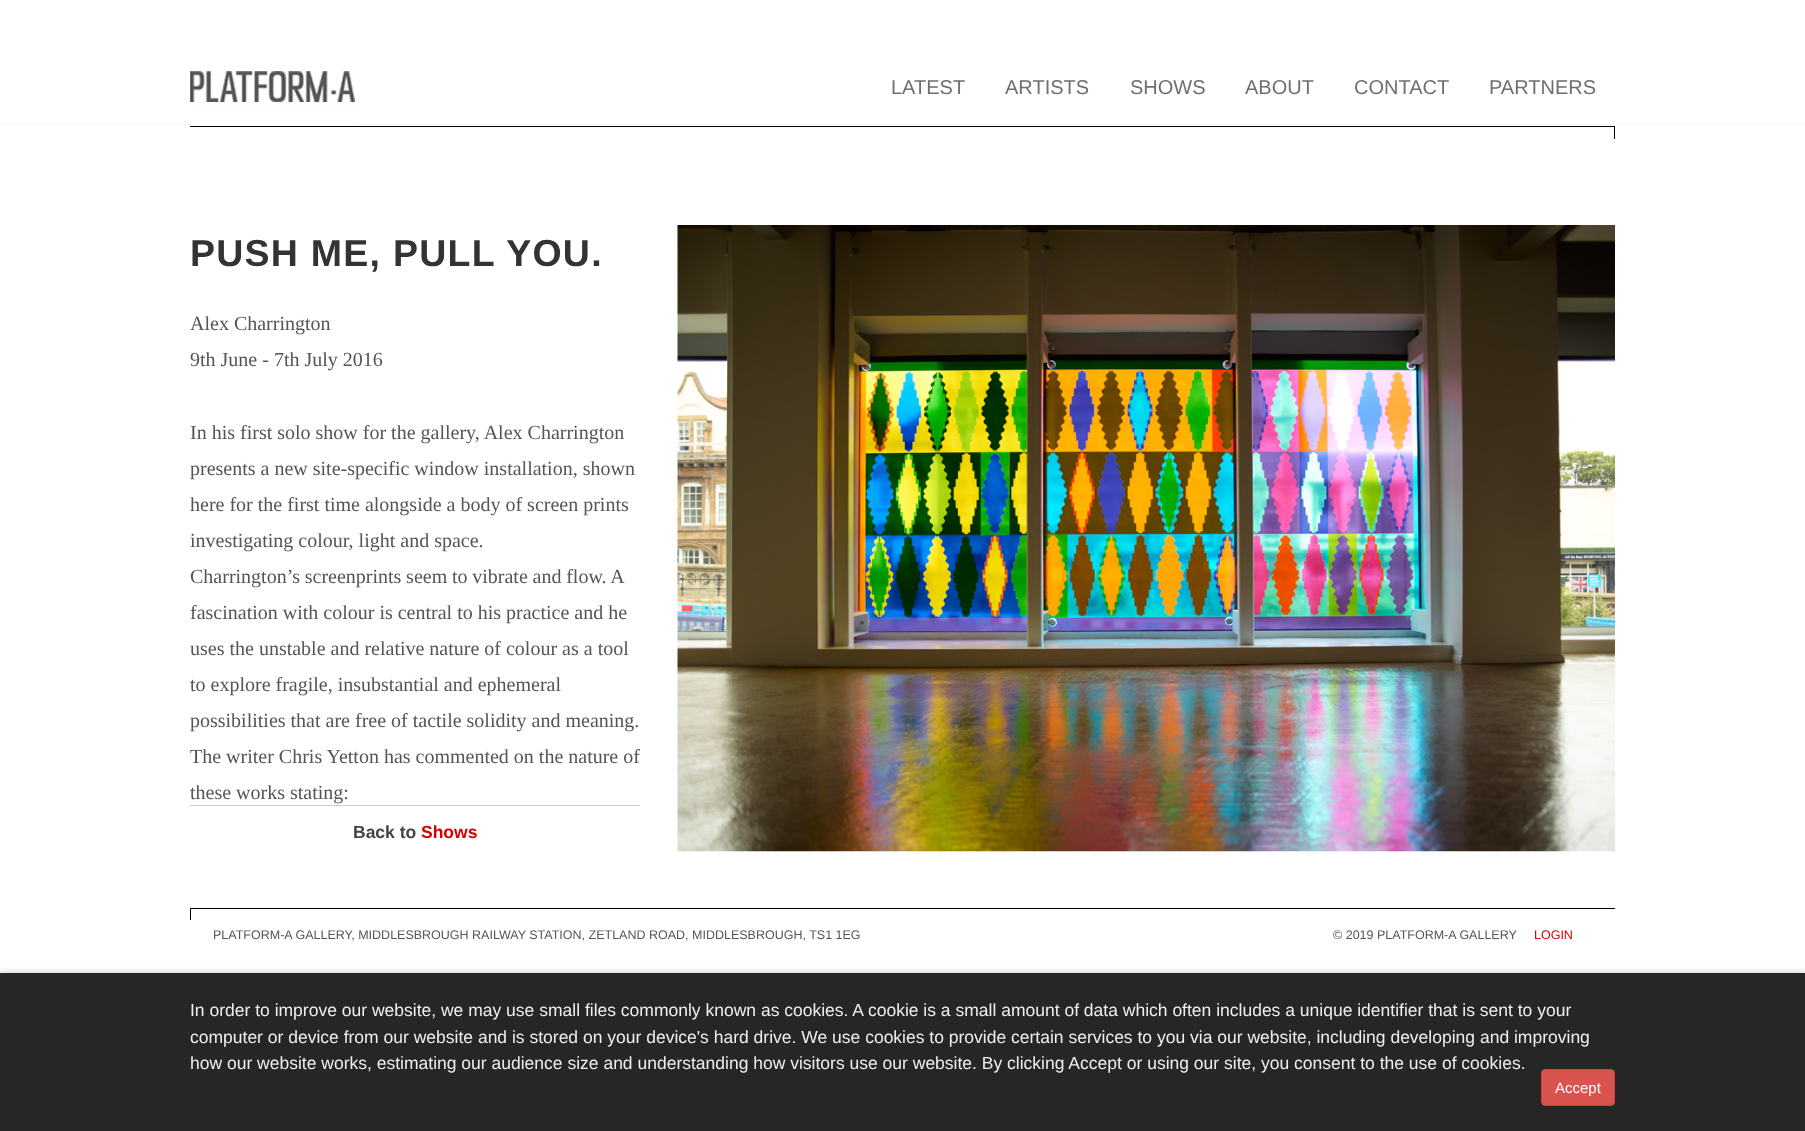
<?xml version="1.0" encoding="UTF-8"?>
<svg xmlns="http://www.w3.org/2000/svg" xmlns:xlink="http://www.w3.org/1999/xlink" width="1805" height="1131">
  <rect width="100%" height="100%" fill="#ffffff" />
  <rect y="124" width="1805" height="1" fill="#f5f5f5" />
  <image x="190" y="71" width="165" height="54" xlink:href="image1.png" />
  <rect x="190" y="126" width="1425" height="1" fill="#000000" />
  <rect x="1614" y="126" width="1" height="13" fill="#000000" />
  <rect x="190" y="805" width="450" height="1" fill="#cccccc" />
  <image x="677" y="225" width="938" height="627" xlink:href="image2.png" />
  <rect x="190" y="908" width="1425" height="1" fill="#000000" />
  <rect x="190" y="908" width="1" height="12" fill="#000000" />
  <rect y="971" width="1805" height="159" fill="#000000" fill-opacity="0.15" filter="blur(2.5px)" />
  <rect y="973" width="1805" height="158" fill="#262626" />
  <rect x="1541.5" y="1069.5" width="73" height="36" rx="3.5" fill="#d9534f" stroke="#d43f3a" />
  <text x="891" y="94" style="font-family: Liberation Sans; font-size: 20px; fill: #6f6f6f">LATEST</text>
  <text x="1005" y="94" style="font-family: Liberation Sans; font-size: 20px; fill: #6f6f6f">ARTISTS</text>
  <text x="1130" y="94" style="font-family: Liberation Sans; font-size: 20px; fill: #6f6f6f">SHOWS</text>
  <text x="1245" y="94" style="font-family: Liberation Sans; font-size: 20px; fill: #6f6f6f">ABOUT</text>
  <text x="1354" y="94" style="font-family: Liberation Sans; font-size: 20px; fill: #6f6f6f">CONTACT</text>
  <text x="1489" y="94" style="font-family: Liberation Sans; font-size: 20px; fill: #6f6f6f">PARTNERS</text>
  <text x="190" y="266" style="font-family: Liberation Sans; font-size: 37.5px; font-weight: bold; letter-spacing: 1.25px; fill: #333333">PUSH ME, PULL YOU.</text>
  <text x="190" y="330" style="font-family: Liberation Serif; font-size: 20px; fill: #555555">Alex Charrington</text>
  <text x="190" y="366" style="font-family: Liberation Serif; font-size: 20px; fill: #555555">9th June - 7th July 2016</text>
  <text x="190" y="439" style="font-family: Liberation Serif; font-size: 20px; fill: #555555">In his first solo show for the gallery, Alex Charrington</text>
  <text x="190" y="475" style="font-family: Liberation Serif; font-size: 20px; fill: #555555">presents a new site-specific window installation, shown</text>
  <text x="190" y="511" style="font-family: Liberation Serif; font-size: 20px; fill: #555555">here for the first time alongside a body of screen prints</text>
  <text x="190" y="547" style="font-family: Liberation Serif; font-size: 20px; fill: #555555">investigating colour, light and space.</text>
  <text x="190" y="583" word-spacing="-0.25" style="font-family: Liberation Serif; font-size: 20px; fill: #555555">Charrington’s screenprints seem to vibrate and flow. A</text>
  <text x="190" y="619" style="font-family: Liberation Serif; font-size: 20px; fill: #555555">fascination with colour is central to his practice and he</text>
  <text x="190" y="655" style="font-family: Liberation Serif; font-size: 20px; fill: #555555">uses the unstable and relative nature of colour as a tool</text>
  <text x="190" y="691" style="font-family: Liberation Serif; font-size: 20px; fill: #555555">to explore fragile, insubstantial and ephemeral</text>
  <text x="190" y="727" style="font-family: Liberation Serif; font-size: 20px; fill: #555555">possibilities that are free of tactile solidity and meaning.</text>
  <text x="190" y="763" style="font-family: Liberation Serif; font-size: 20px; fill: #555555">The writer Chris Yetton has commented on the nature of</text>
  <text x="190" y="799" style="font-family: Liberation Serif; font-size: 20px; fill: #555555">these works stating:</text>
  <text x="353" y="838" style="font-family: Liberation Sans; font-size: 17.5px; font-weight: bold; fill: #444444">Back to</text>
  <text x="421" y="838" style="font-family: Liberation Sans; font-size: 17.5px; font-weight: bold; fill: #d40000">Shows</text>
  <text x="213" y="939" style="font-family: Liberation Sans; font-size: 12.5px; fill: #555555">PLATFORM-A GALLERY, MIDDLESBROUGH RAILWAY STATION, ZETLAND ROAD, MIDDLESBROUGH, TS1 1EG</text>
  <text x="1333" y="939" style="font-family: Liberation Sans; font-size: 12.5px; fill: #555555">© 2019 PLATFORM-A GALLERY</text>
  <text x="1534" y="939" style="font-family: Liberation Sans; font-size: 12.5px; fill: #d40000">LOGIN</text>
  <text x="190" y="1016" style="font-family: Liberation Sans; font-size: 17.5px; fill: #eeeeee">In order to improve our website, we may use small files commonly known as cookies. A cookie is a small amount of data which often includes a unique identifier that is sent to your</text>
  <text x="190" y="1043" style="font-family: Liberation Sans; font-size: 17.5px; fill: #eeeeee">computer or device from our website and is stored on your device's hard drive. We use cookies to provide certain services to you via our website, including developing and improving</text>
  <text x="190" y="1069" style="font-family: Liberation Sans; font-size: 17.5px; fill: #eeeeee">how our website works, estimating our audience size and understanding how visitors use our website. By clicking Accept or using our site, you consent to the use of cookies.</text>
  <text x="1555" y="1093" style="font-family: Liberation Sans; font-size: 15px; fill: #ffffff">Accept</text>
</svg>
